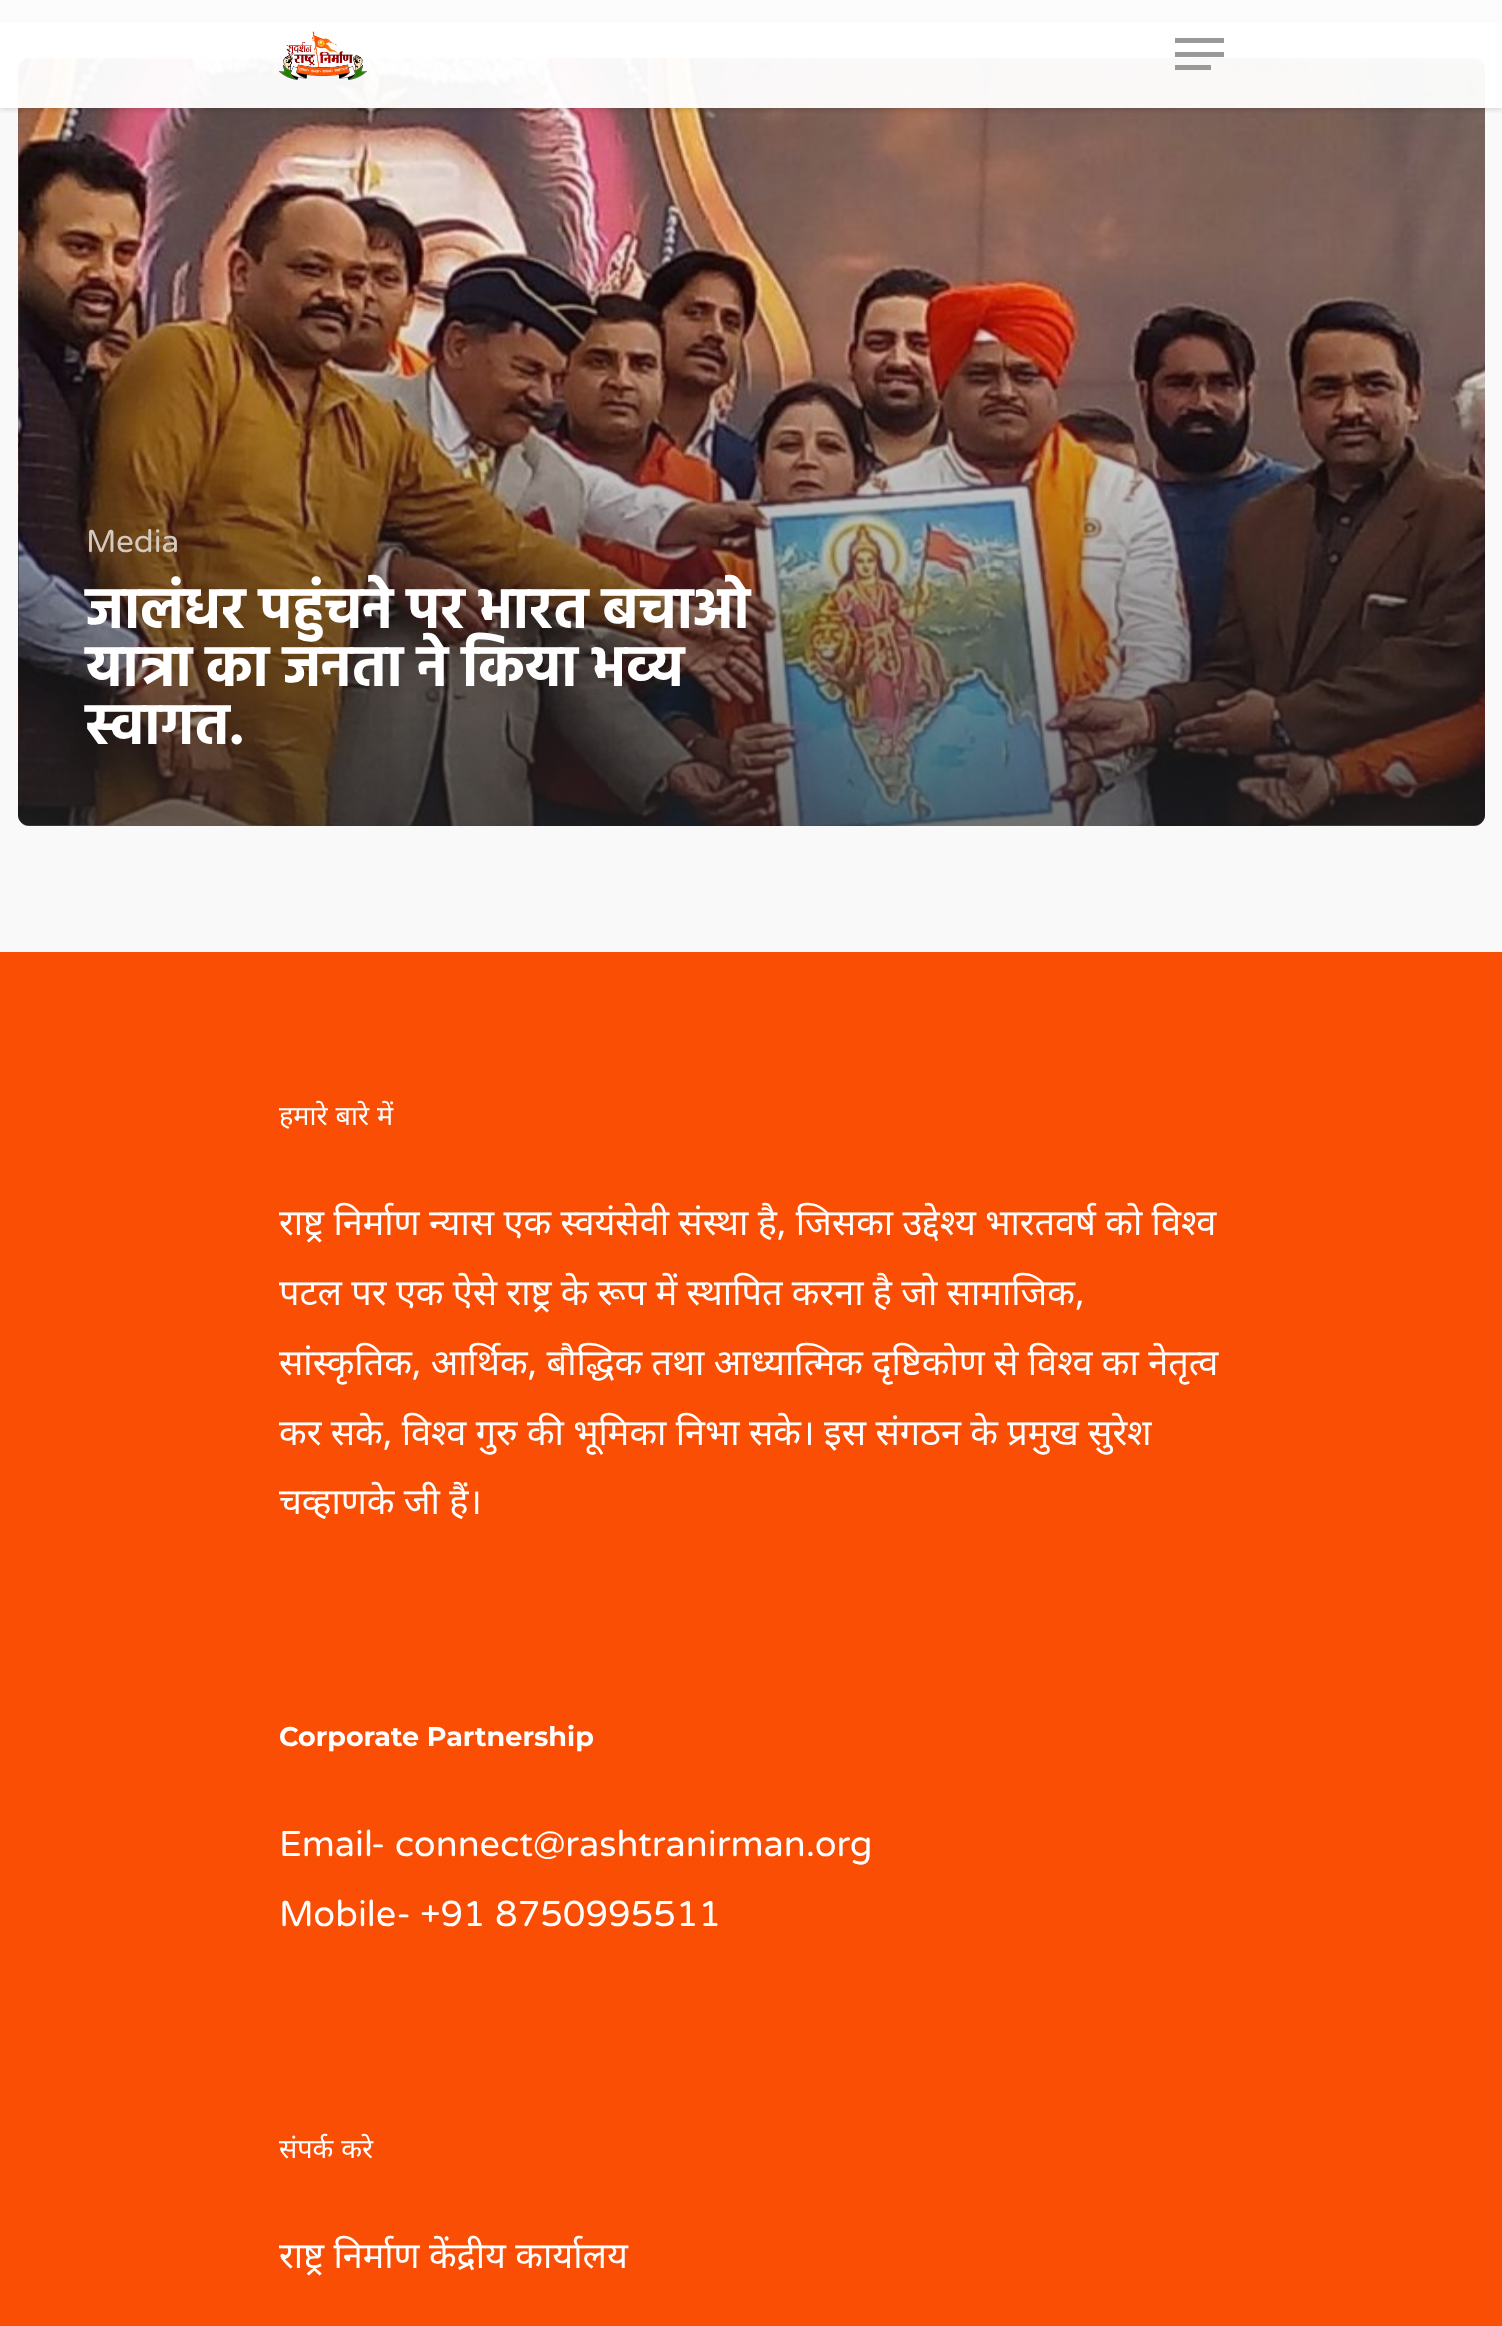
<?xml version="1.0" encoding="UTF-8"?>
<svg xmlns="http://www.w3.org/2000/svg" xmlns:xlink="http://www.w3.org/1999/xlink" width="1502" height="2326">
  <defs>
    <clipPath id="clip1"><rect x="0" y="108" width="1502" height="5" /></clipPath>
    <linearGradient id="g1" gradientUnits="userSpaceOnUse" x1="755" y1="252" x2="755" y2="830"><stop offset="0" stop-color="#232323" stop-opacity="0" /><stop offset="1" stop-color="#232323" stop-opacity="0.65" /></linearGradient>
  </defs>
  <rect width="100%" height="100%" fill="#f9f9f9" />
  <rect width="1502" height="23" fill="#ababab" />
  <rect x="18" y="59" width="1467" height="767" rx="11" fill="#b1b1b1" />
  <image x="18" y="58" width="1467" height="768" xlink:href="image2.png" />
  <g clip-path="url(#clip1)">
    <rect width="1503" height="108" fill="#000000" fill-opacity="0.22" filter="blur(3.5px)" />
  </g>
  <rect width="1502" height="108" fill="#ffffff" fill-opacity="0.96" />
  <image x="279" y="31" width="88" height="49" xlink:href="image1.png" />
  <rect x="1175" y="38" width="49" height="5" fill="#999999" />
  <rect x="1175" y="65" width="36" height="5" fill="#999999" />
  <rect x="1175" y="52" width="49" height="5" fill="#999999" />
  <path d="M 18 252 h 1467 v 563 c 0 6 -5 11 -11 11 h -1445 c -6 0 -11 -5 -11 -11 z" fill="url(#g1)" />
  <rect y="952" width="1502" height="1374" fill="#f94e04" />
  <text x="86" y="552" style="font-family: Varela Round; font-size: 31.5px; fill: #d3c9bf">Media</text>
  <text x="86" y="628" style="font-family: Hind; font-size: 57.6px; font-weight: bold; fill: #ffffff">जालंधर पहुंचने पर भारत बचाओ</text>
  <text x="86" y="686" style="font-family: Hind; font-size: 57.6px; font-weight: bold; fill: #ffffff">यात्रा का जनता ने किया भव्य</text>
  <text x="86" y="744" style="font-family: Hind; font-size: 57.6px; font-weight: bold; fill: #ffffff">स्वागत.</text>
  <text x="279" y="1125" word-spacing="1" style="font-family: Noto Sans; font-size: 27px; fill: #ffffff">हमारे बारे में</text>
  <text x="279" y="1235" style="font-family: Noto Sans; font-size: 36px; fill: #ffffff">राष्ट्र निर्माण न्यास एक स्वयंसेवी संस्था है, जिसका उद्देश्य भारतवर्ष को विश्व</text>
  <text x="279" y="1305" style="font-family: Noto Sans; font-size: 36px; fill: #ffffff">पटल पर एक ऐसे राष्ट्र के रूप में स्थापित करना है जो सामाजिक,</text>
  <text x="279" y="1375" style="font-family: Noto Sans; font-size: 36px; fill: #ffffff">सांस्कृतिक, आर्थिक, बौद्धिक तथा आध्यात्मिक दृष्टिकोण से विश्व का नेतृत्व</text>
  <text x="279" y="1445" style="font-family: Noto Sans; font-size: 36px; fill: #ffffff">कर सके, विश्व गुरु की भूमिका निभा सके। इस संगठन के प्रमुख सुरेश</text>
  <text x="279" y="1514" style="font-family: Noto Sans; font-size: 36px; fill: #ffffff">चव्हाणके जी हैं।</text>
  <text x="279" y="1746" style="font-family: Montserrat; font-size: 27px; font-weight: 100; fill: #ffffff">Corporate Partnership</text>
  <text x="279" y="1856" style="font-family: Varela Round; font-size: 36px; fill: #ffffff">Email- connect@rashtranirman.org</text>
  <text x="279" y="1926" style="font-family: Varela Round; font-size: 36px; fill: #ffffff">Mobile- +91 8750995511</text>
  <text x="279" y="2158" word-spacing="1" style="font-family: Noto Sans; font-size: 27px; fill: #ffffff">संपर्क करे</text>
  <text x="279" y="2268" style="font-family: Noto Sans; font-size: 36px; fill: #ffffff">राष्ट्र निर्माण केंद्रीय कार्यालय</text>
</svg>
